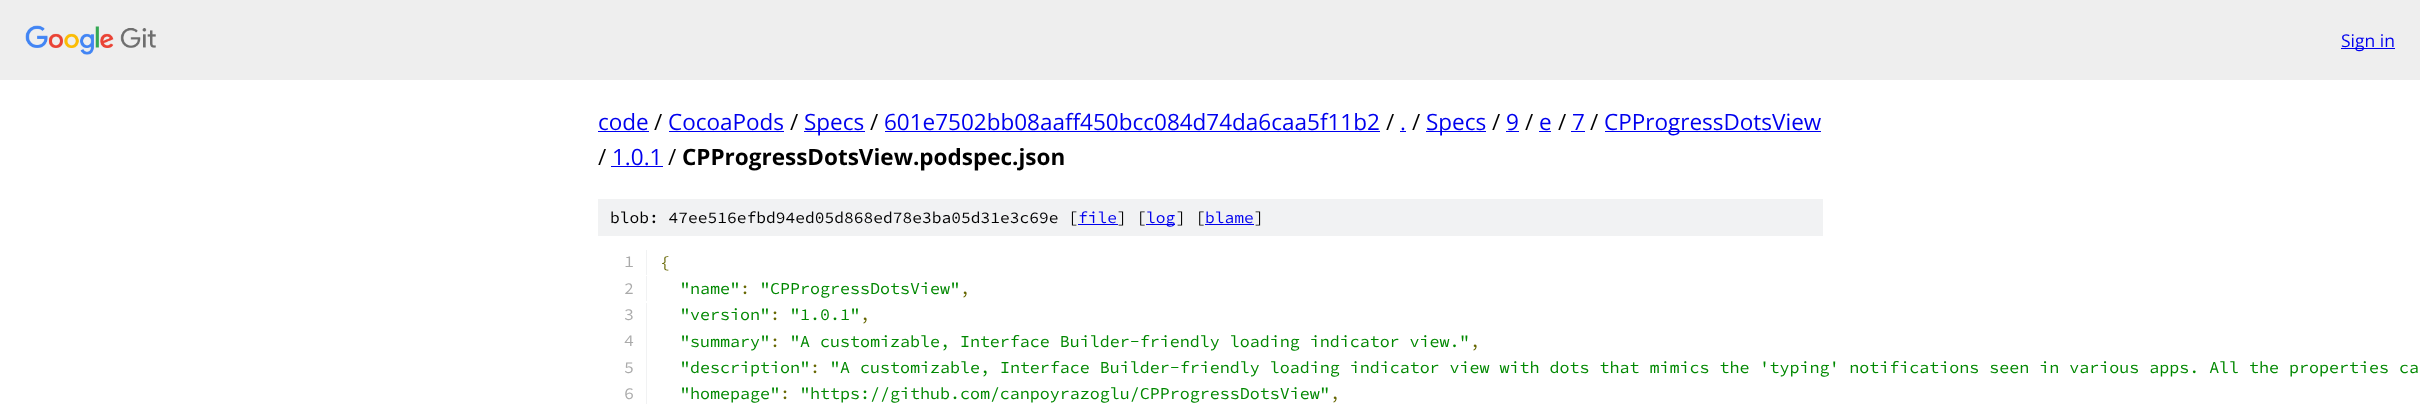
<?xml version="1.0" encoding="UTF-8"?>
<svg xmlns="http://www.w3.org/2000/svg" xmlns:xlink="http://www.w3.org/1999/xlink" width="2420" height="404">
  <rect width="100%" height="100%" fill="#ffffff" />
  <rect width="2420" height="80" fill="#eeeeee" />
  <image x="25" y="25" width="131" height="30" xlink:href="image1.png" />
  <rect x="2341" y="48" width="54" height="1" fill="#0000ee" />
  <rect x="598" y="131" width="51" height="1" fill="#0000ee" />
  <rect x="669" y="131" width="115" height="1" fill="#0000ee" />
  <rect x="804" y="131" width="61" height="1" fill="#0000ee" />
  <rect x="885" y="131" width="495" height="1" fill="#0000ee" />
  <rect x="1400" y="131" width="6" height="1" fill="#0000ee" />
  <rect x="1426" y="131" width="60" height="1" fill="#0000ee" />
  <rect x="1506" y="131" width="13" height="1" fill="#0000ee" />
  <rect x="1539" y="131" width="12" height="1" fill="#0000ee" />
  <rect x="1571" y="131" width="14" height="1" fill="#0000ee" />
  <rect x="1605" y="131" width="216" height="1" fill="#0000ee" />
  <rect x="611" y="166" width="52" height="1" fill="#0000ee" />
  <rect x="598" y="199" width="1225" height="37" fill="#f1f2f3" />
  <rect x="1078" y="224" width="40" height="1" fill="#0000ee" />
  <rect x="1146" y="224" width="29" height="1" fill="#0000ee" />
  <rect x="1205" y="224" width="49" height="1" fill="#0000ee" />
  <rect x="646" y="250" width="1" height="25" fill="#f1f2f3" />
  <rect x="646" y="276" width="1" height="25" fill="#f1f2f3" />
  <rect x="646" y="303" width="1" height="101" fill="#f1f2f3" />
  <text x="2341" y="47" style="font-family: Open Sans; font-size: 17.5px; fill: #0000ee">Sign in</text>
  <text x="598" y="130" style="font-family: Open Sans; font-size: 22.5px; fill: #0000ee">code</text>
  <text x="654" y="130" style="font-family: Open Sans; font-size: 22.5px; fill: #000000">/</text>
  <text x="668" y="130" style="font-family: Open Sans; font-size: 22.5px; fill: #0000ee">CocoaPods</text>
  <text x="790" y="130" style="font-family: Open Sans; font-size: 22.5px; fill: #000000">/</text>
  <text x="804" y="130" style="font-family: Open Sans; font-size: 22.5px; fill: #0000ee">Specs</text>
  <text x="870" y="130" style="font-family: Open Sans; font-size: 22.5px; fill: #000000">/</text>
  <text x="884" y="130" style="font-family: Open Sans; font-size: 22.5px; fill: #0000ee">601e7502bb08aaff450bcc084d74da6caa5f11b2</text>
  <text x="1386" y="130" style="font-family: Open Sans; font-size: 22.5px; fill: #000000">/</text>
  <text x="1400" y="130" style="font-family: Open Sans; font-size: 22.5px; fill: #0000ee">.</text>
  <text x="1412" y="130" style="font-family: Open Sans; font-size: 22.5px; fill: #000000">/</text>
  <text x="1426" y="130" style="font-family: Open Sans; font-size: 22.5px; fill: #0000ee">Specs</text>
  <text x="1492" y="130" style="font-family: Open Sans; font-size: 22.5px; fill: #000000">/</text>
  <text x="1506" y="130" style="font-family: Open Sans; font-size: 22.5px; fill: #0000ee">9</text>
  <text x="1525" y="130" style="font-family: Open Sans; font-size: 22.5px; fill: #000000">/</text>
  <text x="1539" y="130" style="font-family: Open Sans; font-size: 22.5px; fill: #0000ee">e</text>
  <text x="1558" y="130" style="font-family: Open Sans; font-size: 22.5px; fill: #000000">/</text>
  <text x="1572" y="130" style="font-family: Open Sans; font-size: 22.5px; fill: #0000ee">7</text>
  <text x="1590" y="130" style="font-family: Open Sans; font-size: 22.5px; fill: #000000">/</text>
  <text x="1604" y="130" style="font-family: Open Sans; font-size: 22.5px; fill: #0000ee">CPProgressDotsView</text>
  <text x="598" y="165" style="font-family: Open Sans; font-size: 22.5px; fill: #000000">/</text>
  <text x="612" y="165" style="font-family: Open Sans; font-size: 22.5px; fill: #0000ee">1.0.1</text>
  <text x="668" y="165" style="font-family: Open Sans; font-size: 22.5px; fill: #000000">/</text>
  <text x="682" y="165" style="font-family: Open Sans; font-size: 22.5px; font-weight: bold; fill: #000000">CPProgressDotsView.podspec.json</text>
  <text x="610" y="223" style="font-family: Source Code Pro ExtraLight; font-size: 16.25px; font-weight: 200; fill: #000000">blob: 47ee516efbd94ed05d868ed78e3ba05d31e3c69e [</text>
  <text x="1078" y="223" style="font-family: Source Code Pro ExtraLight; font-size: 16.25px; font-weight: 200; fill: #0000ee">file</text>
  <text x="1117" y="223" style="font-family: Source Code Pro ExtraLight; font-size: 16.25px; font-weight: 200; fill: #000000">] [</text>
  <text x="1146" y="223" style="font-family: Source Code Pro ExtraLight; font-size: 16.25px; font-weight: 200; fill: #0000ee">log</text>
  <text x="1176" y="223" style="font-family: Source Code Pro ExtraLight; font-size: 16.25px; font-weight: 200; fill: #000000">] [</text>
  <text x="1205" y="223" style="font-family: Source Code Pro ExtraLight; font-size: 16.25px; font-weight: 200; fill: #0000ee">blame</text>
  <text x="1254" y="223" style="font-family: Source Code Pro ExtraLight; font-size: 16.25px; font-weight: 200; fill: #000000">]</text>
  <text x="624" y="267" style="font-family: Source Code Pro ExtraLight; font-size: 16.67px; font-weight: 200; fill: #aaaaaa">1</text>
  <text x="660" y="268" style="font-family: Source Code Pro ExtraLight; font-size: 16.67px; font-weight: 200; fill: #666600">{</text>
  <text x="624" y="294" style="font-family: Source Code Pro ExtraLight; font-size: 16.67px; font-weight: 200; fill: #aaaaaa">2</text>
  <text x="680" y="294" style="font-family: Source Code Pro ExtraLight; font-size: 16.67px; font-weight: 200; fill: #008800">"name"</text>
  <text x="740" y="294" style="font-family: Source Code Pro ExtraLight; font-size: 16.67px; font-weight: 200; fill: #666600">:</text>
  <text x="760" y="294" style="font-family: Source Code Pro ExtraLight; font-size: 16.67px; font-weight: 200; fill: #008800">"CPProgressDotsView"</text>
  <text x="960" y="294" style="font-family: Source Code Pro ExtraLight; font-size: 16.67px; font-weight: 200; fill: #666600">,</text>
  <text x="624" y="320" style="font-family: Source Code Pro ExtraLight; font-size: 16.67px; font-weight: 200; fill: #aaaaaa">3</text>
  <text x="680" y="320" style="font-family: Source Code Pro ExtraLight; font-size: 16.67px; font-weight: 200; fill: #008800">"version"</text>
  <text x="770" y="320" style="font-family: Source Code Pro ExtraLight; font-size: 16.67px; font-weight: 200; fill: #666600">:</text>
  <text x="790" y="320" style="font-family: Source Code Pro ExtraLight; font-size: 16.67px; font-weight: 200; fill: #008800">"1.0.1"</text>
  <text x="860" y="320" style="font-family: Source Code Pro ExtraLight; font-size: 16.67px; font-weight: 200; fill: #666600">,</text>
  <text x="624" y="346" style="font-family: Source Code Pro ExtraLight; font-size: 16.67px; font-weight: 200; fill: #aaaaaa">4</text>
  <text x="680" y="347" style="font-family: Source Code Pro ExtraLight; font-size: 16.67px; font-weight: 200; fill: #008800">"summary"</text>
  <text x="770" y="347" style="font-family: Source Code Pro ExtraLight; font-size: 16.67px; font-weight: 200; fill: #666600">:</text>
  <text x="790" y="347" style="font-family: Source Code Pro ExtraLight; font-size: 16.67px; font-weight: 200; fill: #008800">"A customizable, Interface Builder-friendly loading indicator view."</text>
  <text x="1470" y="347" style="font-family: Source Code Pro ExtraLight; font-size: 16.67px; font-weight: 200; fill: #666600">,</text>
  <text x="624" y="373" style="font-family: Source Code Pro ExtraLight; font-size: 16.67px; font-weight: 200; fill: #aaaaaa">5</text>
  <text x="680" y="373" style="font-family: Source Code Pro ExtraLight; font-size: 16.67px; font-weight: 200; fill: #008800">"description"</text>
  <text x="810" y="373" style="font-family: Source Code Pro ExtraLight; font-size: 16.67px; font-weight: 200; fill: #666600">:</text>
  <text x="830" y="373" style="font-family: Source Code Pro ExtraLight; font-size: 16.67px; font-weight: 200; fill: #008800">"A customizable, Interface Builder-friendly loading indicator view with dots that mimics the 'typing' notifications seen in various apps. All the properties ca</text>
  <text x="624" y="399" style="font-family: Source Code Pro ExtraLight; font-size: 16.67px; font-weight: 200; fill: #aaaaaa">6</text>
  <text x="680" y="399" style="font-family: Source Code Pro ExtraLight; font-size: 16.67px; font-weight: 200; fill: #008800">"homepage"</text>
  <text x="780" y="399" style="font-family: Source Code Pro ExtraLight; font-size: 16.67px; font-weight: 200; fill: #666600">:</text>
  <text x="800" y="399" style="font-family: Source Code Pro ExtraLight; font-size: 16.67px; font-weight: 200; fill: #008800">"https://github.com/canpoyrazoglu/CPProgressDotsView"</text>
  <text x="1330" y="399" style="font-family: Source Code Pro ExtraLight; font-size: 16.67px; font-weight: 200; fill: #666600">,</text>
</svg>
